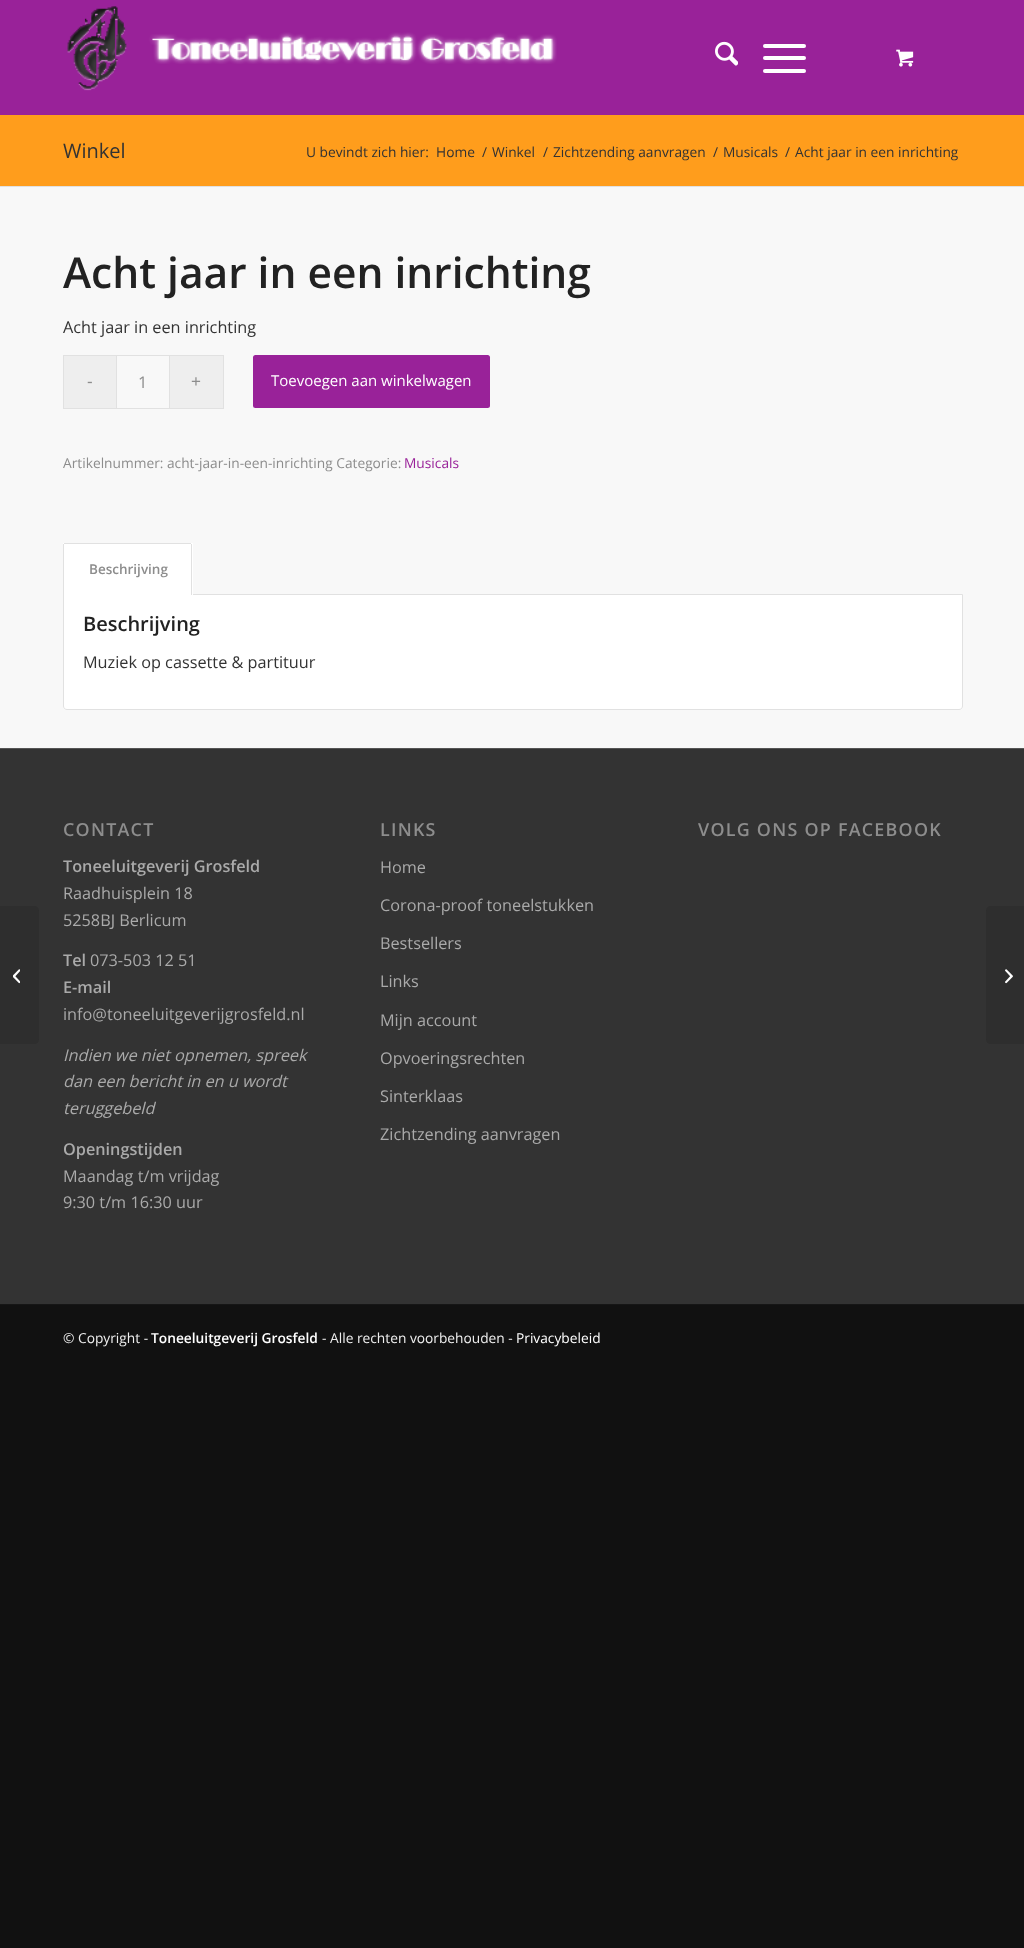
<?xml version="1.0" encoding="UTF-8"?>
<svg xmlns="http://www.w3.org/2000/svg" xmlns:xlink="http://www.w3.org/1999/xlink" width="1024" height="1948">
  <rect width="100%" height="100%" fill="#111111" />
  <rect width="1024" height="115" fill="#992299" />
  <image x="67" y="6" width="490" height="85" xlink:href="image1.png" />
  <image x="715" y="41" width="23" height="25" xlink:href="image2.png" />
  <rect x="763" y="56" width="43" height="4" rx="2" fill="#ffffff" />
  <rect x="763" y="44" width="43" height="4" rx="2" fill="#ffffff" />
  <rect x="763" y="69" width="43" height="4" rx="2" fill="#ffffff" />
  <image x="896" y="49" width="18" height="18" xlink:href="image3.png" />
  <rect y="749" width="1024" height="555" fill="#333333" />
  <path d="M 0 906 h 34 c 3 0 5 2 5 5 v 128 c 0 3 -2 5 -5 5 h -34 z" fill="#2e2e2e" />
  <image x="13" y="969" width="7" height="15" xlink:href="image4.png" />
  <rect y="115" width="1024" height="71" fill="#ff9d1c" />
  <rect y="187" width="1024" height="561" fill="#f8f8f8" />
  <rect y="186" width="1024" height="1" fill="#e1e1e1" />
  <rect x="64" y="356" width="52" height="52" fill="#eeeeee" />
  <rect x="63" y="355" width="53" height="1" fill="#e1e1e1" />
  <rect x="63" y="408" width="53" height="1" fill="#e1e1e1" />
  <rect x="63" y="355" width="1" height="54" fill="#e1e1e1" />
  <rect x="116.5" y="355.5" width="53" height="53" fill="none" stroke="#e1e1e1" />
  <rect x="170" y="356" width="53" height="52" fill="#eeeeee" />
  <rect x="170" y="355" width="54" height="1" fill="#e1e1e1" />
  <rect x="223" y="355" width="1" height="54" fill="#e1e1e1" />
  <rect x="170" y="408" width="54" height="1" fill="#e1e1e1" />
  <rect x="253" y="355" width="237" height="53" rx="2.5" fill="#992299" />
  <path d="M 63.5 594.5 h 899 v 111.5 c 0 2 -1.5 3.5 -3.5 3.5 h -892 c -2 0 -3.5 -1.5 -3.5 -3.5 z" fill="#ffffff" stroke="#e1e1e1" />
  <rect x="63" y="543" width="130" height="52" fill="#ffffff" />
  <rect x="64" y="543" width="127" height="1" fill="#e1e1e1" />
  <rect x="191" y="544" width="1" height="51" fill="#e1e1e1" />
  <rect x="63" y="544" width="1" height="51" fill="#e1e1e1" />
  <rect y="748" width="1024" height="1" fill="#555555" />
  <rect y="1304" width="1024" height="1" fill="#161616" />
  <path d="M 991 906 h 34 v 138 h -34 c -3 0 -5 -2 -5 -5 v -128 c 0 -3 2 -5 5 -5 z" fill="#2e2e2e" />
  <image x="1005" y="969" width="8" height="15" xlink:href="image5.png" />
  <text x="63" y="158" style="font-family: Open Sans; font-size: 20px; fill: #333333">Winkel</text>
  <text x="306" y="157" style="font-family: Open Sans; font-size: 13.75px; fill: #333333">U bevindt zich hier:</text>
  <text x="436" y="157" style="font-family: Open Sans; font-size: 13.75px; fill: #333333">Home</text>
  <text x="482" y="157" style="font-family: Open Sans; font-size: 13.75px; fill: #333333">/</text>
  <text x="492" y="157" style="font-family: Open Sans; font-size: 13.75px; fill: #333333">Winkel</text>
  <text x="543" y="157" style="font-family: Open Sans; font-size: 13.75px; fill: #333333">/</text>
  <text x="553" y="157" style="font-family: Open Sans; font-size: 13.75px; fill: #333333">Zichtzending aanvragen</text>
  <text x="713" y="157" style="font-family: Open Sans; font-size: 13.75px; fill: #333333">/</text>
  <text x="723" y="157" style="font-family: Open Sans; font-size: 13.75px; fill: #333333">Musicals</text>
  <text x="785" y="157" style="font-family: Open Sans; font-size: 13.75px; fill: #333333">/</text>
  <text x="795" y="157" style="font-family: Open Sans; font-size: 13.75px; fill: #333333">Acht jaar in een inrichting</text>
  <text x="63" y="288" style="font-family: Open Sans; font-size: 42.5px; font-weight: 600; fill: #222222">Acht jaar in een inrichting</text>
  <text x="63" y="333" style="font-family: Open Sans; font-size: 16.25px; fill: #333333">Acht jaar in een inrichting</text>
  <text x="87" y="387" style="font-family: Liberation Sans; font-size: 17px; fill: #8d8d8d">-</text>
  <text x="138" y="388" style="font-family: Open Sans; font-size: 16.25px; fill: #8d8d8d">1</text>
  <text x="191" y="387" style="font-family: Liberation Sans; font-size: 17px; fill: #8d8d8d">+</text>
  <text x="271" y="386" style="font-family: Open Sans; font-size: 15px; fill: #ffffff">Toevoegen aan winkelwagen</text>
  <text x="63" y="468" style="font-family: Open Sans; font-size: 13.75px; fill: #8d8d8d">Artikelnummer: acht-jaar-in-een-inrichting Categorie:</text>
  <text x="404" y="468" style="font-family: Open Sans; font-size: 13.75px; fill: #992299">Musicals</text>
  <text x="89" y="574" style="font-family: Open Sans; font-size: 13.5px; font-weight: 600; fill: #8d8d8d">Beschrijving</text>
  <text x="83" y="631" style="font-family: Open Sans; font-size: 20px; font-weight: 600; fill: #222222">Beschrijving</text>
  <text x="83" y="668" style="font-family: Open Sans; font-size: 16.25px; fill: #333333">Muziek op cassette &amp; partituur</text>
  <text x="63" y="836" style="font-family: Open Sans; font-size: 17.9px; font-weight: 600; letter-spacing: 1.25px; fill: #8d8d8d">CONTACT</text>
  <text x="63" y="872" style="font-family: Open Sans; font-size: 16.25px; font-weight: 600; fill: #aaaaaa">Toneeluitgeverij Grosfeld</text>
  <text x="63" y="899" style="font-family: Open Sans; font-size: 16.25px; fill: #aaaaaa">Raadhuisplein 18</text>
  <text x="63" y="926" style="font-family: Open Sans; font-size: 16.25px; fill: #aaaaaa">5258BJ Berlicum</text>
  <text x="63" y="966" style="font-family: Open Sans; font-size: 16.25px; font-weight: 600; fill: #aaaaaa">Tel</text>
  <text x="90" y="966" style="font-family: Open Sans; font-size: 16.25px; fill: #aaaaaa">073-503 12 51</text>
  <text x="63" y="993" style="font-family: Open Sans; font-size: 16.25px; font-weight: 600; fill: #aaaaaa">E-mail</text>
  <text x="63" y="1020" style="font-family: Open Sans; font-size: 16.25px; fill: #aaaaaa">info@toneeluitgeverijgrosfeld.nl</text>
  <text x="63" y="1061" style="font-family: Open Sans; font-size: 16.25px; font-style: italic; fill: #aaaaaa">Indien we niet opnemen, spreek</text>
  <text x="63" y="1087" style="font-family: Open Sans; font-size: 16.25px; font-style: italic; fill: #aaaaaa">dan een bericht in en u wordt</text>
  <text x="63" y="1114" style="font-family: Open Sans; font-size: 16.25px; font-style: italic; fill: #aaaaaa">teruggebeld</text>
  <text x="63" y="1155" style="font-family: Open Sans; font-size: 16.25px; font-weight: 600; fill: #aaaaaa">Openingstijden</text>
  <text x="63" y="1182" style="font-family: Open Sans; font-size: 16.25px; fill: #aaaaaa">Maandag t/m vrijdag</text>
  <text x="63" y="1208" style="font-family: Open Sans; font-size: 16.25px; fill: #aaaaaa">9:30 t/m 16:30 uur</text>
  <text x="380" y="836" style="font-family: Open Sans; font-size: 17.9px; font-weight: 600; letter-spacing: 1.25px; fill: #8d8d8d">LINKS</text>
  <text x="380" y="873" style="font-family: Open Sans; font-size: 16.25px; fill: #aaaaaa">Home</text>
  <text x="380" y="911" style="font-family: Open Sans; font-size: 16.25px; fill: #aaaaaa">Corona-proof toneelstukken</text>
  <text x="380" y="949" style="font-family: Open Sans; font-size: 16.25px; fill: #aaaaaa">Bestsellers</text>
  <text x="380" y="987" style="font-family: Open Sans; font-size: 16.25px; fill: #aaaaaa">Links</text>
  <text x="380" y="1026" style="font-family: Open Sans; font-size: 16.25px; fill: #aaaaaa">Mijn account</text>
  <text x="380" y="1064" style="font-family: Open Sans; font-size: 16.25px; fill: #aaaaaa">Opvoeringsrechten</text>
  <text x="380" y="1102" style="font-family: Open Sans; font-size: 16.25px; fill: #aaaaaa">Sinterklaas</text>
  <text x="380" y="1140" style="font-family: Open Sans; font-size: 16.25px; fill: #aaaaaa">Zichtzending aanvragen</text>
  <text x="698" y="836" style="font-family: Open Sans; font-size: 17.9px; font-weight: 600; letter-spacing: 1.25px; fill: #8d8d8d">VOLG ONS OP FACEBOOK</text>
  <text x="63" y="1343" style="font-family: Open Sans; font-size: 13.75px; fill: #eeeeee">© Copyright -</text>
  <text x="151" y="1343" style="font-family: Open Sans; font-size: 13.75px; font-weight: 600; fill: #ffffff">Toneeluitgeverij Grosfeld</text>
  <text x="322" y="1343" style="font-family: Open Sans; font-size: 13.75px; fill: #eeeeee">- Alle rechten voorbehouden -</text>
  <text x="516" y="1343" style="font-family: Open Sans; font-size: 13.75px; fill: #ffffff">Privacybeleid</text>
</svg>
